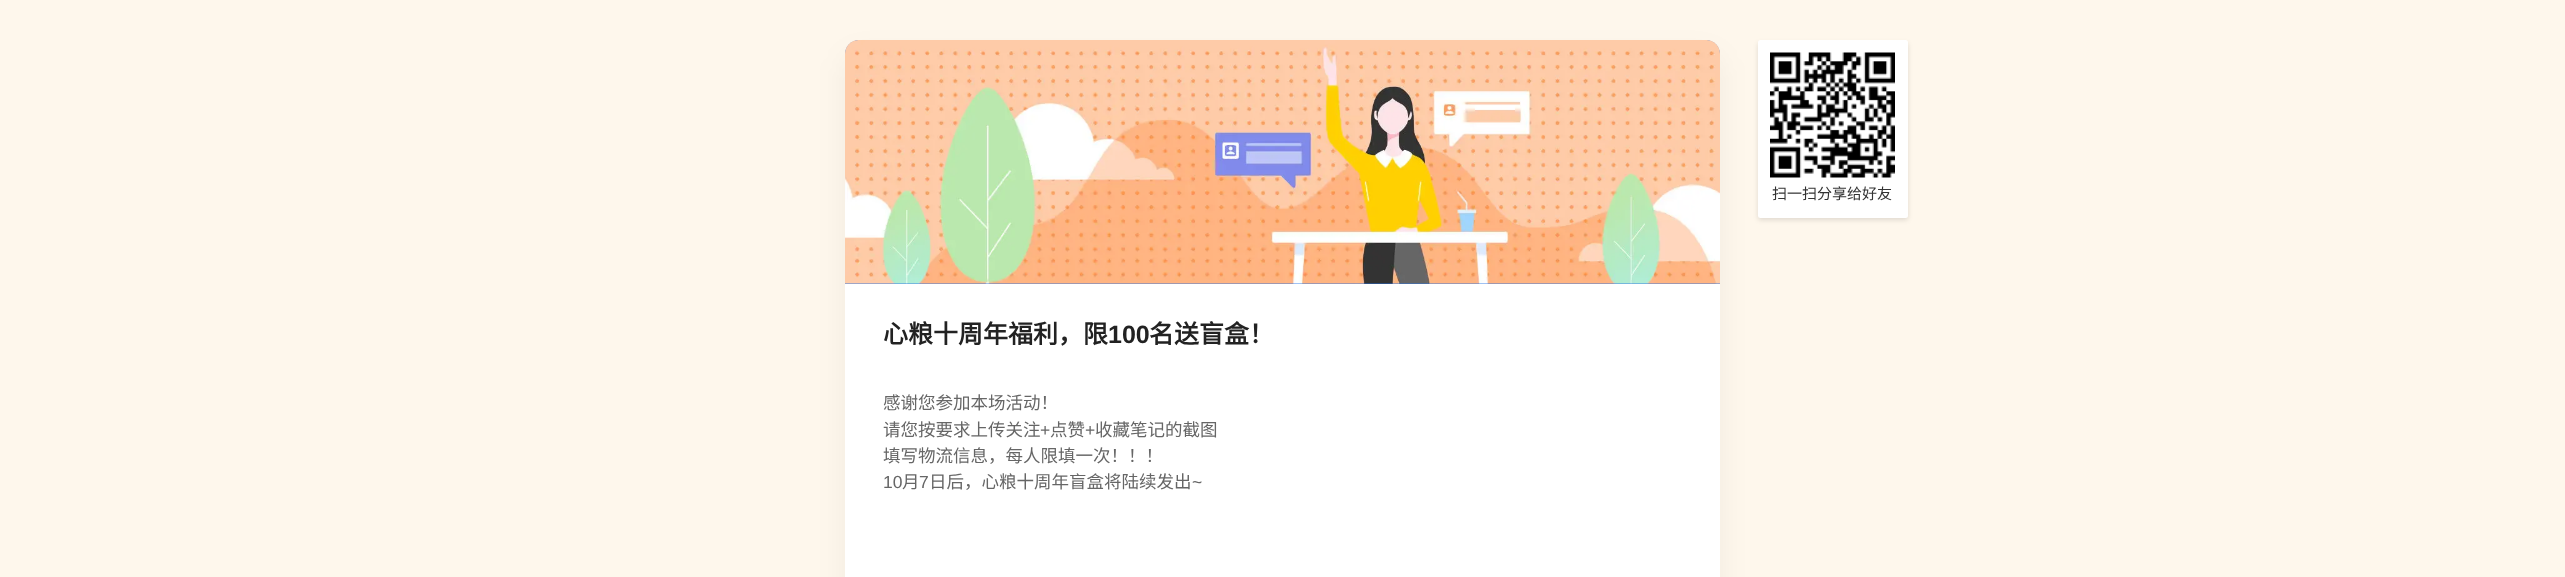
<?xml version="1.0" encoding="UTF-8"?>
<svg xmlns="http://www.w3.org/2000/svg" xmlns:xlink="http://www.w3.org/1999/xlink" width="2565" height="577">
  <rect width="100%" height="100%" fill="#fef7ec" />
  <rect x="845" y="55" width="875" height="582" rx="15" fill="#000000" fill-opacity="0.05" filter="blur(15px)" />
  <rect x="845" y="40" width="875" height="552" rx="15" fill="#ffffff" />
  <path d="M 859 40 h 847 c 7.5 0 14 6.5 14 14 v 230 h -875 v -230 c 0 -7.5 6.5 -14 14 -14 z" fill="#2875e8" />
  <image x="845" y="40" width="875" height="244" xlink:href="image1.png" />
  <rect x="1758" y="43" width="150" height="177" rx="2.5" fill="#000000" fill-opacity="0.12" filter="blur(2.5px)" />
  <rect x="1758" y="40" width="150" height="178" rx="2.5" fill="#ffffff" />
  <image x="1770" y="52" width="125" height="126" xlink:href="image2.png" />
  <text x="1772" y="199" style="font-family: Noto Sans CJK SC; font-size: 15px; fill: #333333">扫一扫分享给好友</text>
  <text x="883" y="343" style="font-family: Noto Sans CJK SC; font-size: 25px; font-weight: bold; fill: #222222">心粮十周年福利，限</text>
  <text x="1108" y="343" style="font-family: Liberation Sans; font-size: 25px; font-weight: bold; fill: #222222">100</text>
  <text x="1149" y="343" style="font-family: Noto Sans CJK SC; font-size: 25px; font-weight: bold; fill: #222222">名送盲盒！</text>
  <text x="883" y="409" style="font-family: Noto Sans CJK SC; font-size: 17.5px; fill: #666666">感谢您参加本场活动！</text>
  <text x="883" y="436" style="font-family: Noto Sans CJK SC; font-size: 17.5px; fill: #666666">请您按要求上传关注</text>
  <text x="1040" y="436" style="font-family: Liberation Sans; font-size: 17.5px; fill: #666666">+</text>
  <text x="1050" y="436" style="font-family: Noto Sans CJK SC; font-size: 17.5px; fill: #666666">点赞</text>
  <text x="1085" y="436" style="font-family: Liberation Sans; font-size: 17.5px; fill: #666666">+</text>
  <text x="1095" y="436" style="font-family: Noto Sans CJK SC; font-size: 17.5px; fill: #666666">收藏笔记的截图</text>
  <text x="883" y="462" style="font-family: Noto Sans CJK SC; font-size: 17.5px; fill: #666666">填写物流信息，每人限填一次！！！</text>
  <text x="883" y="488" style="font-family: Liberation Sans; font-size: 17.5px; fill: #666666">10</text>
  <text x="902" y="488" style="font-family: Noto Sans CJK SC; font-size: 17.5px; fill: #666666">月</text>
  <text x="919" y="488" style="font-family: Liberation Sans; font-size: 17.5px; fill: #666666">7</text>
  <text x="929" y="488" style="font-family: Noto Sans CJK SC; font-size: 17.5px; fill: #666666">日后，心粮十周年盲盒将陆续发出</text>
  <text x="1192" y="488" style="font-family: Liberation Sans; font-size: 17.5px; fill: #666666">~</text>
</svg>
